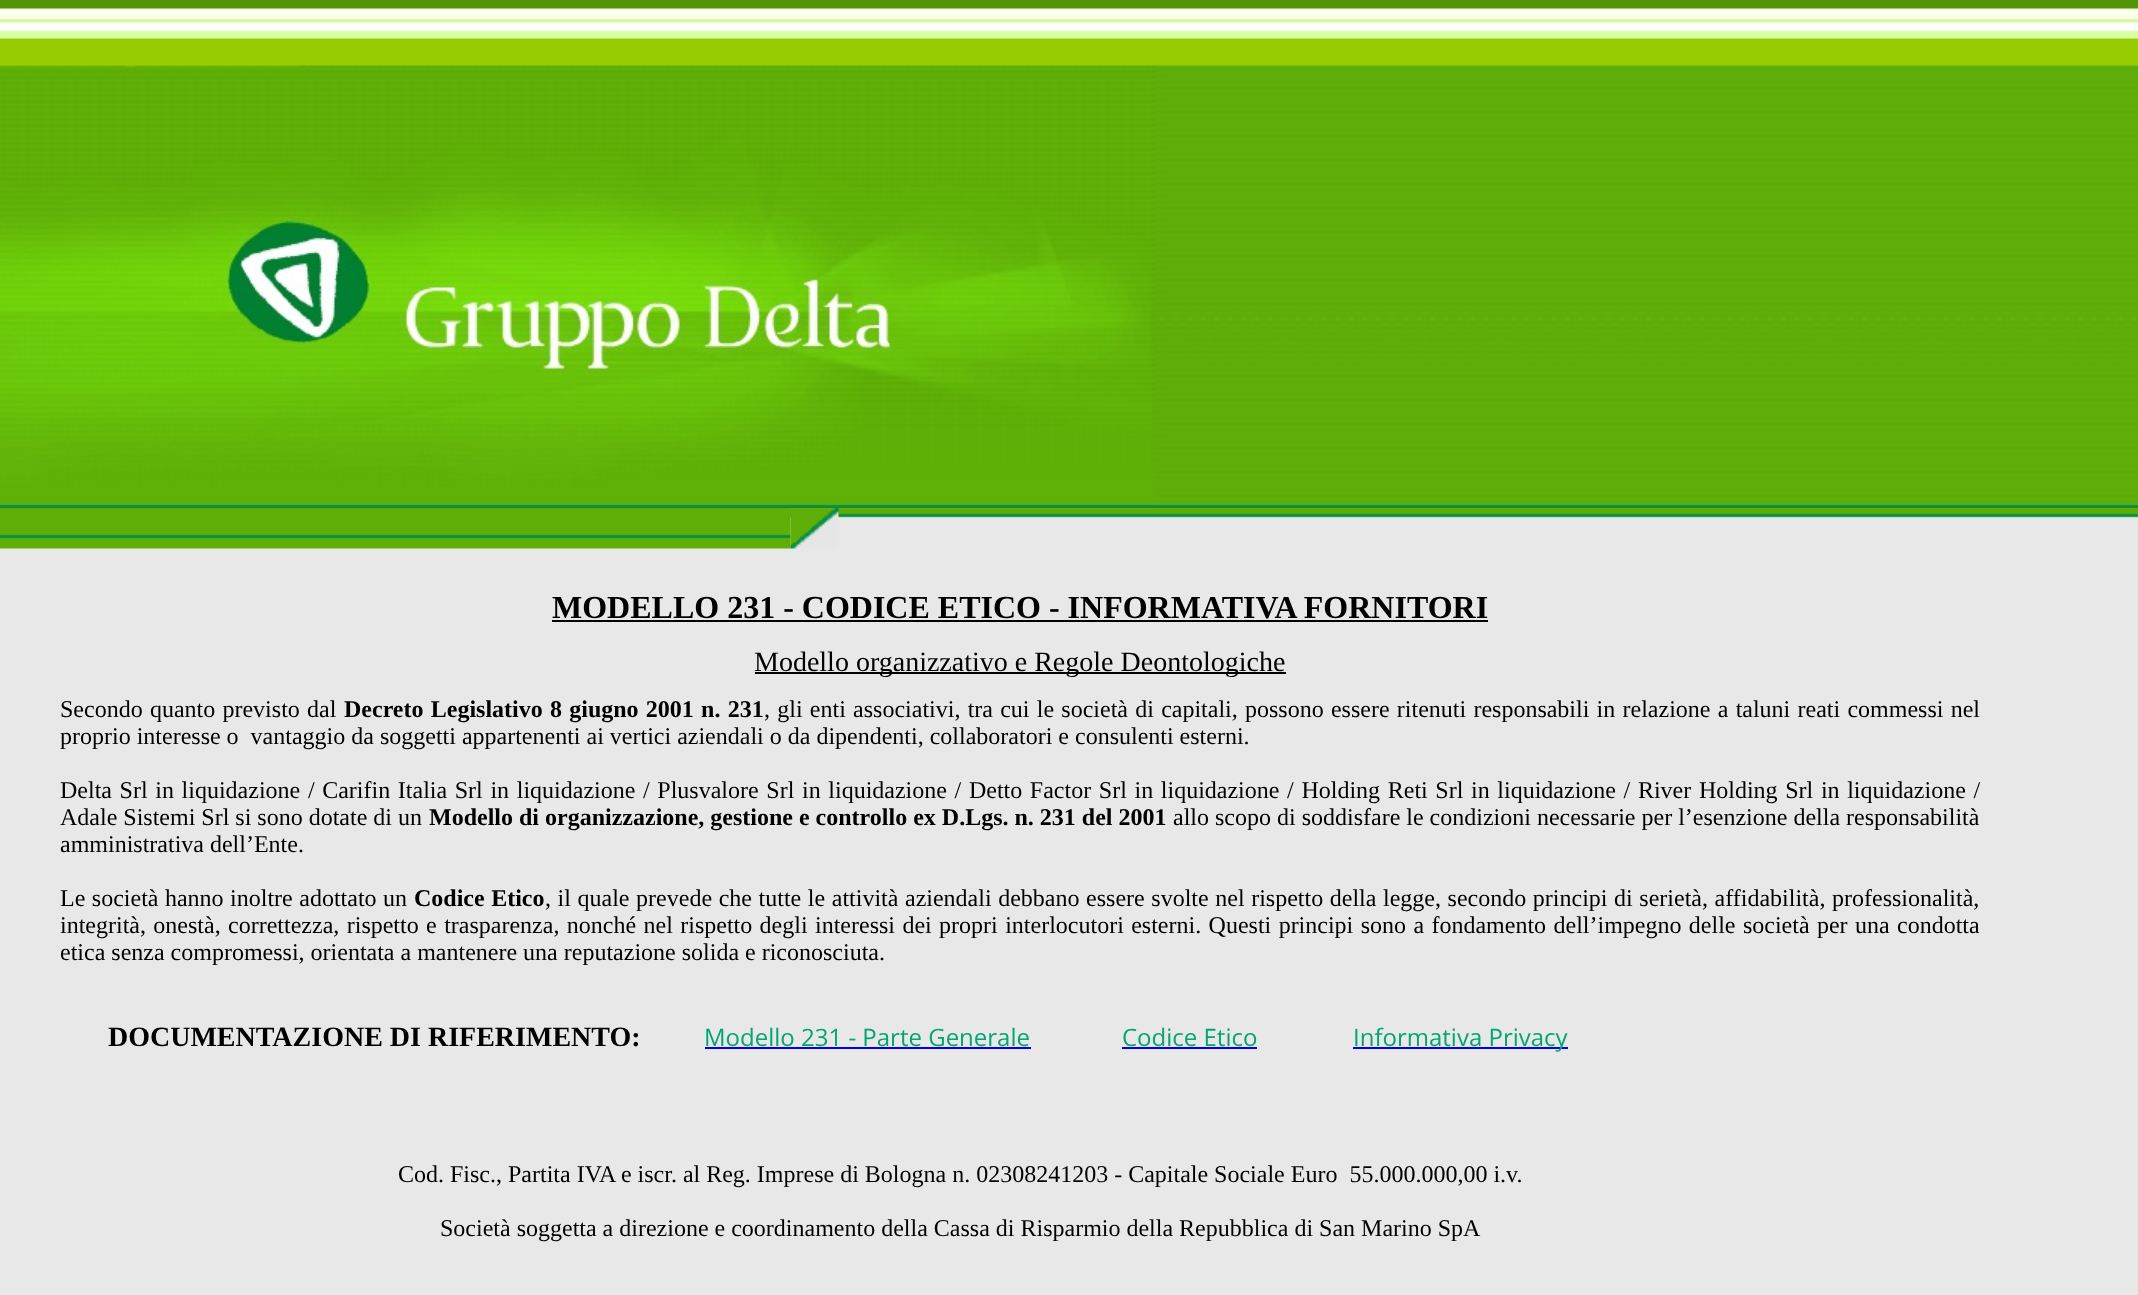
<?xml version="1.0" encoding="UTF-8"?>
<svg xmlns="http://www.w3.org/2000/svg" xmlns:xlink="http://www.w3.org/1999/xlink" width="2138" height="1295">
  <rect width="100%" height="100%" fill="#e8e8e8" />
  <image x="0" y="0" width="2138" height="518" xlink:href="image1.png" />
  <image x="0" y="65" width="2138" height="443" xlink:href="image2.png" />
  <image x="0" y="508" width="791" height="41" xlink:href="image3.png" />
  <image x="790" y="508" width="49" height="41" xlink:href="image4.png" />
  <rect x="552" y="620" width="936" height="2" fill="#000000" />
  <rect x="755" y="672" width="531" height="2" fill="#000000" />
  <rect x="705" y="1047" width="326" height="2" fill="#0000ee" />
  <rect x="1122" y="1047" width="135" height="2" fill="#0000ee" />
  <rect x="1353" y="1047" width="215" height="2" fill="#0000ee" />
  <text x="552" y="618" style="font-family: Liberation Serif; font-size: 32px; font-weight: bold; fill: #000000">MODELLO 231 - CODICE ETICO - INFORMATIVA FORNITORI</text>
  <text x="754" y="671" style="font-family: Liberation Serif; font-size: 28px; fill: #000000">Modello organizzativo e Regole Deontologiche</text>
  <text x="60" y="717" word-spacing="1.25" style="font-family: Liberation Serif; font-size: 24px; fill: #000000">Secondo quanto previsto dal</text>
  <text x="344" y="717" word-spacing="1.25" style="font-family: Liberation Serif; font-size: 24px; font-weight: bold; fill: #000000">Decreto Legislativo 8 giugno 2001 n. 231</text>
  <text x="764" y="717" word-spacing="1.25" style="font-family: Liberation Serif; font-size: 24px; fill: #000000">, gli enti associativi, tra cui le società di capitali, possono essere ritenuti responsabili in relazione a taluni reati commessi nel</text>
  <text x="60" y="744" style="font-family: Liberation Serif; font-size: 24px; fill: #000000" xml:space="preserve">proprio interesse o  vantaggio da soggetti appartenenti ai vertici aziendali o da dipendenti, collaboratori e consulenti esterni.</text>
  <text x="60" y="798" word-spacing="1.65" style="font-family: Liberation Serif; font-size: 24px; fill: #000000">Delta Srl in liquidazione / Carifin Italia Srl in liquidazione / Plusvalore Srl in liquidazione / Detto Factor Srl in liquidazione / Holding Reti Srl in liquidazione / River Holding Srl in liquidazione /</text>
  <text x="60" y="825" style="font-family: Liberation Serif; font-size: 24px; fill: #000000">Adale Sistemi Srl si sono dotate di un</text>
  <text x="429" y="825" style="font-family: Liberation Serif; font-size: 24px; font-weight: bold; fill: #000000">Modello di organizzazione, gestione e controllo ex D.Lgs. n. 231 del 2001</text>
  <text x="1173" y="825" style="font-family: Liberation Serif; font-size: 24px; fill: #000000">allo scopo di soddisfare le condizioni necessarie per l’esenzione della responsabilità</text>
  <text x="60" y="852" style="font-family: Liberation Serif; font-size: 24px; fill: #000000">amministrativa dell’Ente.</text>
  <text x="60" y="906" word-spacing="0.5" style="font-family: Liberation Serif; font-size: 24px; fill: #000000">Le società hanno inoltre adottato un</text>
  <text x="414" y="906" word-spacing="0.5" style="font-family: Liberation Serif; font-size: 24px; font-weight: bold; fill: #000000">Codice Etico</text>
  <text x="545" y="906" word-spacing="0.6" style="font-family: Liberation Serif; font-size: 24px; fill: #000000">, il quale prevede che tutte le attività aziendali debbano essere svolte nel rispetto della legge, secondo principi di serietà, affidabilità, professionalità,</text>
  <text x="60" y="933" word-spacing="1.4" style="font-family: Liberation Serif; font-size: 24px; fill: #000000">integrità, onestà, correttezza, rispetto e trasparenza, nonché nel rispetto degli interessi dei propri interlocutori esterni. Questi principi sono a fondamento dell’impegno delle società per una condotta</text>
  <text x="60" y="960" style="font-family: Liberation Serif; font-size: 24px; fill: #000000">etica senza compromessi, orientata a mantenere una reputazione solida e riconosciuta.</text>
  <text x="108" y="1046" style="font-family: Liberation Serif; font-size: 28px; font-weight: bold; fill: #000000">DOCUMENTAZIONE DI RIFERIMENTO:</text>
  <text x="704" y="1046" style="font-family: Open Sans; font-size: 24px; fill: #01a673">Modello 231 - Parte Generale</text>
  <text x="1122" y="1046" style="font-family: Open Sans; font-size: 24px; fill: #01a673">Codice Etico</text>
  <text x="1353" y="1046" style="font-family: Open Sans; font-size: 24px; fill: #01a673">Informativa Privacy</text>
  <text x="398" y="1182" style="font-family: Liberation Serif; font-size: 24px; fill: #000000" xml:space="preserve">Cod. Fisc., Partita IVA e iscr. al Reg. Imprese di Bologna n. 02308241203 - Capitale Sociale Euro  55.000.000,00 i.v.</text>
  <text x="440" y="1236" style="font-family: Liberation Serif; font-size: 24px; fill: #000000">Società soggetta a direzione e coordinamento della Cassa di Risparmio della Repubblica di San Marino SpA</text>
</svg>
